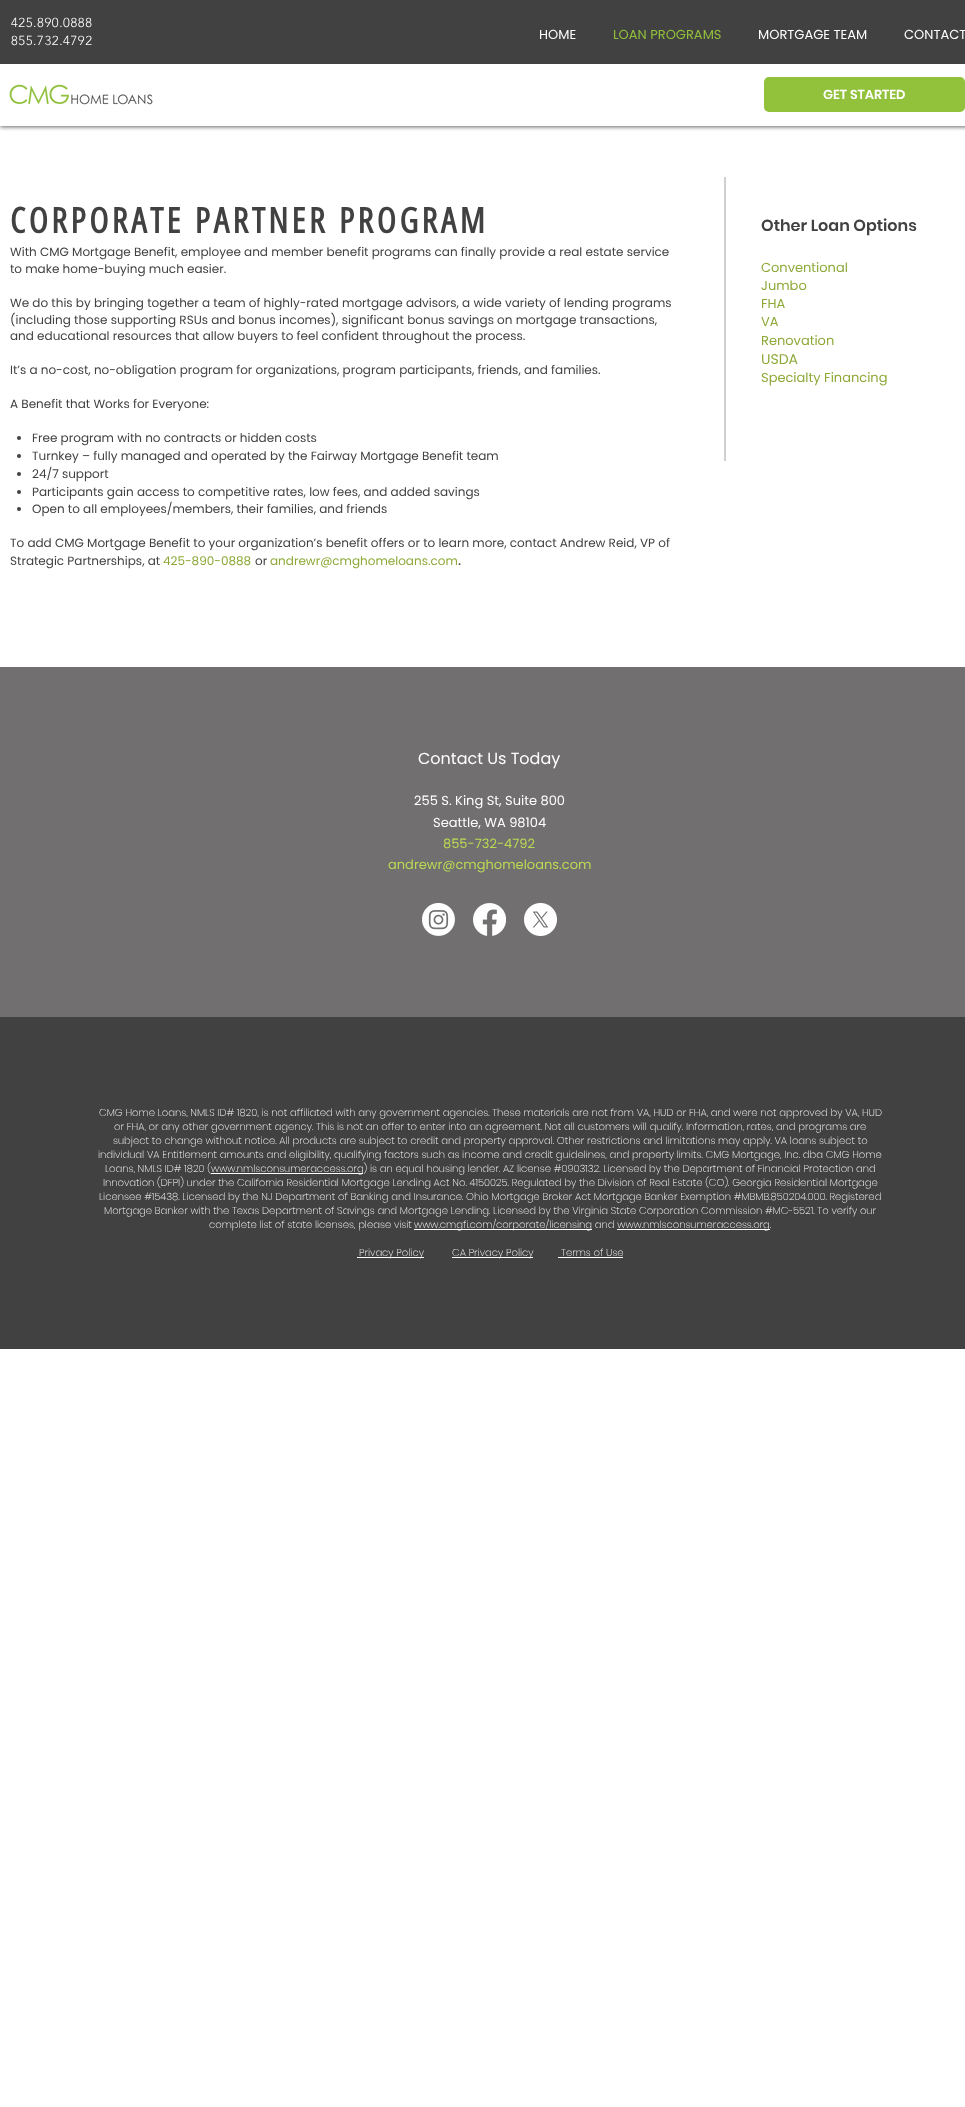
<?xml version="1.0" encoding="UTF-8"?>
<svg xmlns="http://www.w3.org/2000/svg" xmlns:xlink="http://www.w3.org/1999/xlink" width="965" height="2107">
  <defs>
    <clipPath id="clip1"><rect x="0" y="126" width="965" height="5" /></clipPath>
  </defs>
  <rect width="100%" height="100%" fill="#ffffff" />
  <g clip-path="url(#clip1)">
    <rect y="1" width="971" height="126" fill="#000000" fill-opacity="0.6" filter="blur(2px)" />
  </g>
  <rect width="965" height="64" fill="#414141" />
  <image x="9" y="84" width="144" height="21" xlink:href="image1.png" />
  <rect x="764" y="77" width="201" height="35" rx="5" fill="#92c13b" />
  <rect x="724" y="177" width="2" height="284" fill="#d0d0d0" />
  <circle cx="19" cy="438" r="2" fill="#414141" />
  <circle cx="19" cy="456" r="2" fill="#414141" />
  <circle cx="19" cy="474" r="2" fill="#414141" />
  <circle cx="19" cy="492" r="2" fill="#414141" />
  <circle cx="19" cy="509" r="2" fill="#414141" />
  <rect y="667" width="965" height="350" fill="#716f6f" />
  <image x="422" y="903" width="33" height="33" xlink:href="image2.png" />
  <image x="473" y="903" width="33" height="33" xlink:href="image3.png" />
  <image x="524" y="903" width="33" height="33" xlink:href="image4.png" />
  <rect y="1017" width="965" height="332" fill="#414141" />
  <rect x="211" y="1173" width="152" height="1" fill="#ffffff" />
  <rect x="414" y="1229" width="178" height="1" fill="#ffffff" />
  <rect x="617" y="1229" width="153" height="1" fill="#ffffff" />
  <rect x="357" y="1257" width="67" height="1" fill="#ffffff" />
  <rect x="452" y="1257" width="81" height="1" fill="#ffffff" />
  <rect x="558" y="1257" width="65" height="1" fill="#ffffff" />
  <text x="11" y="27" style="font-family: 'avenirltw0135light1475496'; font-size: 13px; font-weight: 300; letter-spacing: 0.6px; fill: #ffffff">425.890.0888</text>
  <text x="11" y="45" style="font-family: 'avenirltw0135light1475496'; font-size: 13px; font-weight: 300; letter-spacing: 0.6px; fill: #ffffff">855.732.4792</text>
  <text x="539" y="39" style="font-family: 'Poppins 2'; font-size: 13px; fill: #ffffff">HOME</text>
  <text x="613" y="39" style="font-family: 'Poppins 2'; font-size: 13px; fill: #92c13b">LOAN PROGRAMS</text>
  <text x="758" y="39" style="font-family: 'Poppins 2'; font-size: 13px; fill: #ffffff">MORTGAGE TEAM</text>
  <text x="904" y="39" style="font-family: 'Poppins 2'; font-size: 13px; fill: #ffffff">CONTACT</text>
  <text x="823" y="99" style="font-family: Poppins; font-size: 13px; font-weight: 600; fill: #ffffff">GET STARTED</text>
  <text x="10" y="233" style="font-family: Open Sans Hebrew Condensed; font-size: 35px; font-weight: bold; letter-spacing: 3.5px; fill: #414141">CORPORATE PARTNER PROGRAM</text>
  <text x="761" y="231" style="font-family: Poppins; font-size: 16px; font-weight: 600; fill: #414141">Other Loan Options</text>
  <text x="761" y="272" style="font-family: Poppins; font-size: 13px; fill: #8ea939">Conventional</text>
  <text x="761" y="290" style="font-family: Poppins; font-size: 13px; fill: #8ea939">Jumbo</text>
  <text x="761" y="308" style="font-family: Poppins; font-size: 13px; fill: #8ea939">FHA</text>
  <text x="761" y="326" style="font-family: Poppins; font-size: 13px; fill: #8ea939">VA</text>
  <text x="761" y="345" style="font-family: Poppins; font-size: 13px; fill: #8ea939">Renovation</text>
  <text x="761" y="364" style="font-family: Poppins; font-size: 14px; fill: #8ea939">USDA</text>
  <text x="761" y="382" style="font-family: Poppins; font-size: 13px; fill: #8ea939">Specialty Financing</text>
  <text x="10" y="256" style="font-family: Poppins; font-size: 12px; fill: #414141">With CMG Mortgage Benefit, employee and member benefit programs can finally provide a real estate service</text>
  <text x="10" y="273" style="font-family: Poppins; font-size: 12px; fill: #414141">to make home-buying much easier.</text>
  <text x="10" y="307" style="font-family: Poppins; font-size: 12px; fill: #414141">We do this by bringing together a team of highly-rated mortgage advisors, a wide variety of lending programs</text>
  <text x="10" y="324" style="font-family: Poppins; font-size: 12px; fill: #414141">(including those supporting RSUs and bonus incomes), significant bonus savings on mortgage transactions,</text>
  <text x="10" y="340" style="font-family: Poppins; font-size: 12px; fill: #414141">and educational resources that allow buyers to feel confident throughout the process.</text>
  <text x="10" y="374" style="font-family: Poppins; font-size: 12px; fill: #414141">It’s a no-cost, no-obligation program for organizations, program participants, friends, and families.</text>
  <text x="10" y="408" style="font-family: Poppins; font-size: 12px; fill: #414141">A Benefit that Works for Everyone:</text>
  <text x="32" y="442" style="font-family: Poppins; font-size: 12px; fill: #414141">Free program with no contracts or hidden costs</text>
  <text x="32" y="460" style="font-family: Poppins; font-size: 12px; fill: #414141">Turnkey – fully managed and operated by the Fairway Mortgage Benefit team</text>
  <text x="32" y="478" style="font-family: Poppins; font-size: 12px; fill: #414141">24/7 support</text>
  <text x="32" y="496" style="font-family: Poppins; font-size: 12px; fill: #414141">Participants gain access to competitive rates, low fees, and added savings</text>
  <text x="32" y="513" style="font-family: Poppins; font-size: 12px; fill: #414141">Open to all employees/members, their families, and friends</text>
  <text x="10" y="547" style="font-family: Poppins; font-size: 12px; fill: #414141">To add CMG Mortgage Benefit to your organization’s benefit offers or to learn more, contact Andrew Reid, VP of</text>
  <text x="10" y="565" style="font-family: Poppins; font-size: 12px; fill: #414141">Strategic Partnerships, at</text>
  <text x="163" y="565" style="font-family: Poppins; font-size: 12px; fill: #8ea939">425-890-0888</text>
  <text x="255" y="565" style="font-family: Poppins; font-size: 12px; fill: #414141">or</text>
  <text x="270" y="565" style="font-family: Poppins; font-size: 12px; fill: #8ea939">andrewr@cmghomeloans.com</text>
  <text x="458" y="565" style="font-family: Poppins; font-size: 15px; fill: #414141">.</text>
  <text x="418" y="764" style="font-family: Poppins; font-size: 16px; fill: #ffffff">Contact Us Today</text>
  <text x="414" y="805" style="font-family: Poppins; font-size: 13px; fill: #ffffff">255 S. King St, Suite 800</text>
  <text x="433" y="827" style="font-family: Poppins; font-size: 13px; fill: #ffffff">Seattle, WA 98104</text>
  <text x="443" y="848" style="font-family: Poppins; font-size: 13px; fill: #bada55">855-732-4792</text>
  <text x="388" y="869" style="font-family: Poppins; font-size: 13px; fill: #bada55">andrewr@cmghomeloans.com</text>
  <text x="99" y="1116" style="font-family: Poppins; font-size: 10px; font-weight: 200; fill: #ffffff">CMG Home Loans, NMLS ID# 1820, is not affiliated with any government agencies. These materials are not from VA, HUD or FHA, and were not approved by VA, HUD</text>
  <text x="114" y="1130" style="font-family: Poppins; font-size: 10px; font-weight: 200; fill: #ffffff">or FHA, or any other government agency. This is not an offer to enter into an agreement. Not all customers will qualify. Information, rates, and programs are</text>
  <text x="113" y="1144" style="font-family: Poppins; font-size: 10px; font-weight: 200; fill: #ffffff">subject to change without notice. All products are subject to credit and property approval. Other restrictions and limitations may apply. VA loans subject to</text>
  <text x="98" y="1158" style="font-family: Poppins; font-size: 10px; font-weight: 200; fill: #ffffff">individual VA Entitlement amounts and eligibility, qualifying factors such as income and credit guidelines, and property limits. CMG Mortgage, Inc. dba CMG Home</text>
  <text x="105" y="1172" style="font-family: Poppins; font-size: 10px; font-weight: 200; fill: #ffffff">Loans, NMLS ID# 1820 (</text>
  <text x="211" y="1172" style="font-family: Poppins; font-size: 10px; font-weight: 200; fill: #ffffff">www.nmlsconsumeraccess.org) is an equal housing lender. AZ license #0903132. Licensed by the Department of Financial Protection and</text>
  <text x="103" y="1186" style="font-family: Poppins; font-size: 10px; font-weight: 200; fill: #ffffff">Innovation (DFPI) under the California Residential Mortgage Lending Act No. 4150025. Regulated by the Division of Real Estate (CO). Georgia Residential Mortgage</text>
  <text x="99" y="1200" style="font-family: Poppins; font-size: 10px; font-weight: 200; fill: #ffffff">Licensee #15438. Licensed by the NJ Department of Banking and Insurance. Ohio Mortgage Broker Act Mortgage Banker Exemption #MBMB.850204.000. Registered</text>
  <text x="104" y="1214" style="font-family: Poppins; font-size: 10px; font-weight: 200; fill: #ffffff">Mortgage Banker with the Texas Department of Savings and Mortgage Lending. Licensed by the Virginia State Corporation Commission #MC-5521. To verify our</text>
  <text x="209" y="1228" style="font-family: Poppins; font-size: 10px; font-weight: 200; fill: #ffffff">complete list of state licenses, please visit</text>
  <text x="414" y="1228" style="font-family: Poppins; font-size: 10px; font-weight: 200; fill: #ffffff">www.cmgfi.com/corporate/licensing and www.nmlsconsumeraccess.or</text>
  <text x="763" y="1228" style="font-family: Poppins; font-size: 10px; font-weight: 200; fill: #ffffff">g.</text>
  <text x="359" y="1256" style="font-family: Poppins; font-size: 10px; font-weight: 200; fill: #ffffff">Privacy Policy</text>
  <text x="452" y="1256" style="font-family: Poppins; font-size: 10px; font-weight: 200; fill: #ffffff">CA Privacy Policy</text>
  <text x="561" y="1256" style="font-family: Poppins; font-size: 10px; font-weight: 200; fill: #ffffff">Terms of Use</text>
</svg>
